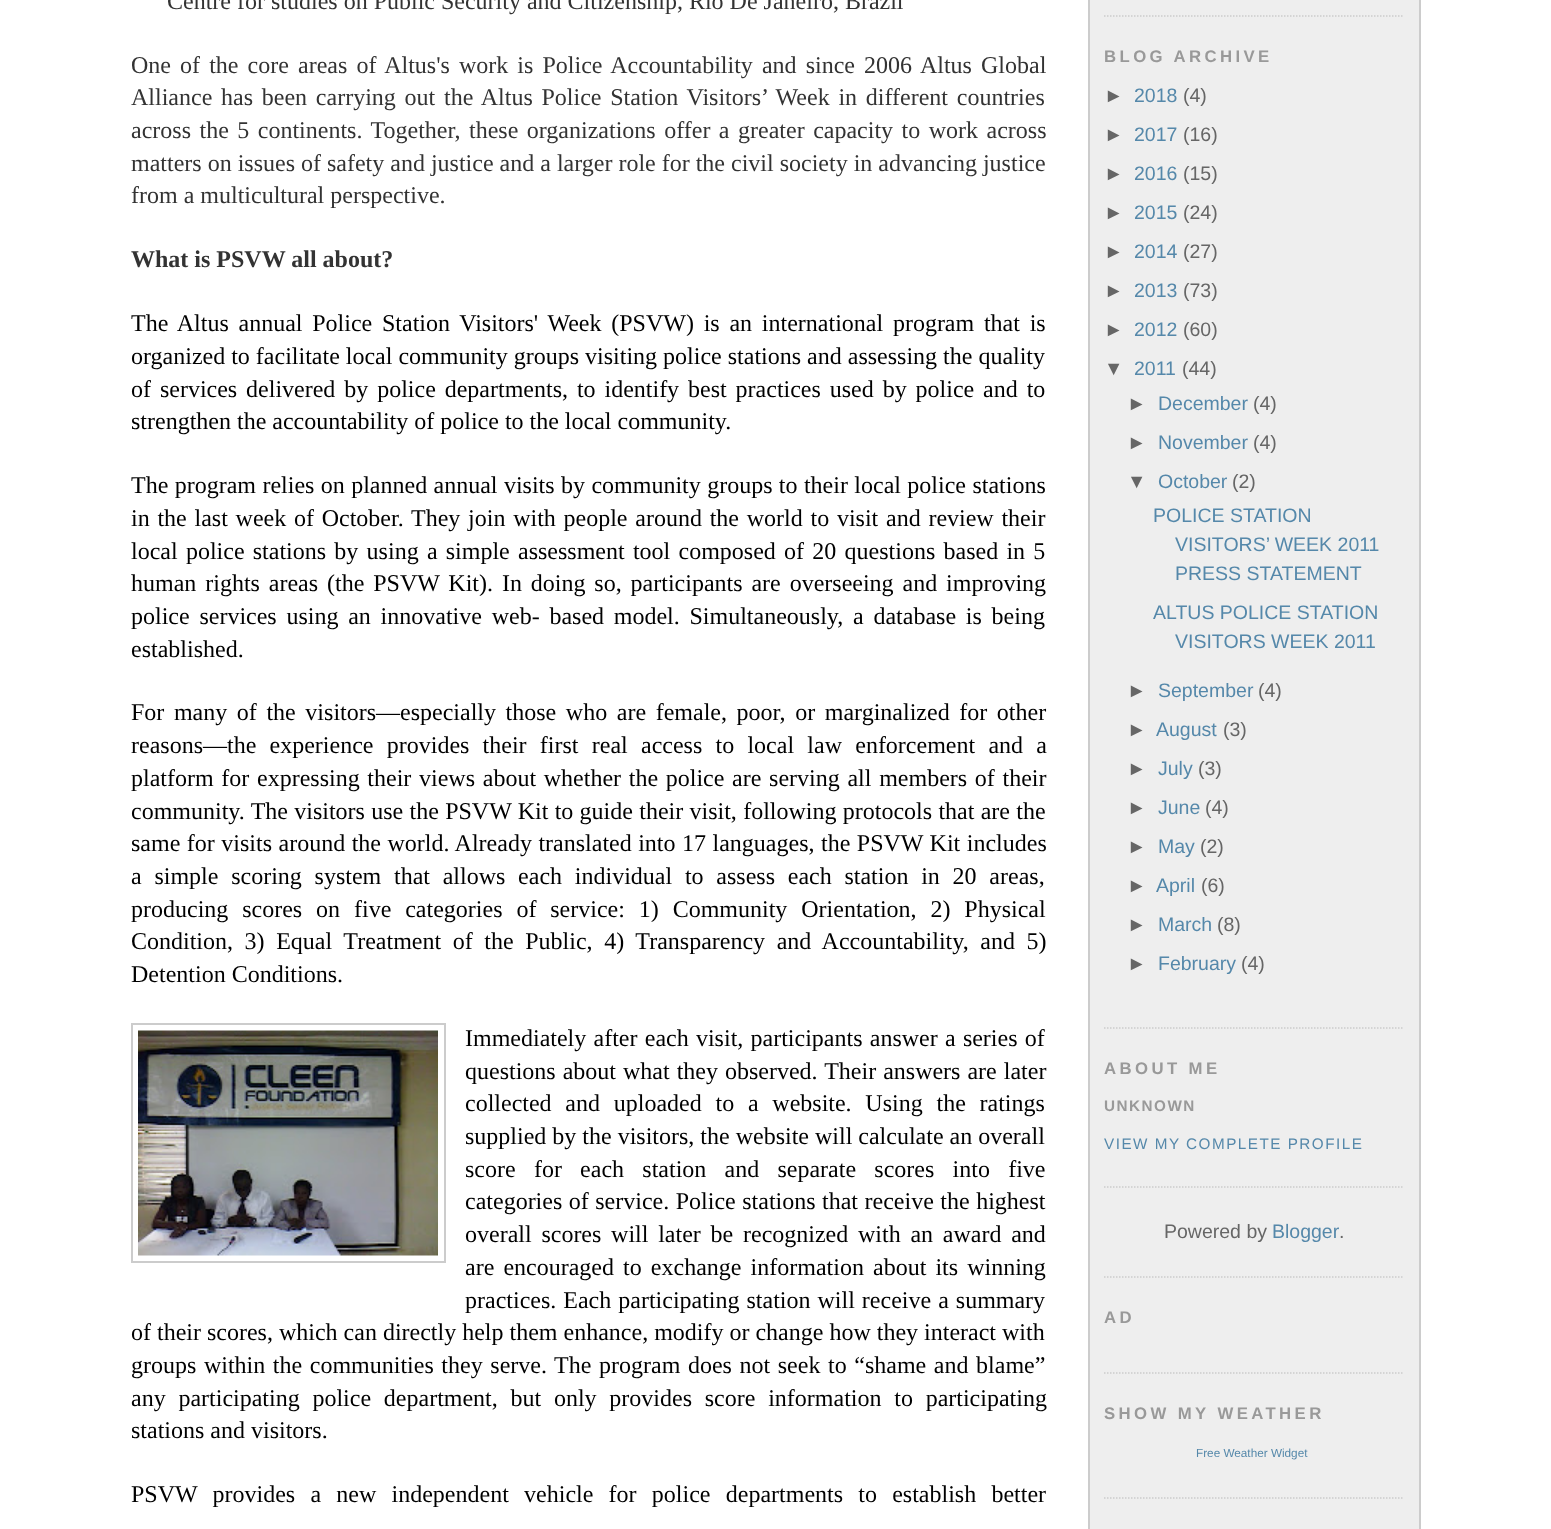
<?xml version="1.0" encoding="UTF-8"?>
<svg xmlns="http://www.w3.org/2000/svg" xmlns:xlink="http://www.w3.org/1999/xlink" width="1551" height="1529">
  <defs>
    <clipPath id="clip1"><rect x="131" width="915" height="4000" /></clipPath>
  </defs>
  <rect width="100%" height="100%" fill="#ffffff" />
  <rect x="132" y="1024" width="313" height="238" fill="none" stroke="#cccccc" stroke-width="2" />
  <image x="138" y="1030" width="300" height="226" xlink:href="image1.png" />
  <rect x="1090" width="329" height="1529" fill="#eeeeee" />
  <rect x="1419" width="2" height="1529" fill="#cccccc" />
  <rect x="1088" width="2" height="1529" fill="#cccccc" />
  <path d="M 1104 16 h 300" fill="none" stroke="#cccccc" stroke-width="1.5" stroke-dasharray="1.5 1.5" />
  <path d="M 1104 1028 h 300" fill="none" stroke="#cccccc" stroke-width="1.5" stroke-dasharray="1.5 1.5" />
  <path d="M 1104 1187 h 300" fill="none" stroke="#cccccc" stroke-width="1.5" stroke-dasharray="1.5 1.5" />
  <path d="M 1104 1277 h 300" fill="none" stroke="#cccccc" stroke-width="1.5" stroke-dasharray="1.5 1.5" />
  <path d="M 1104 1373 h 300" fill="none" stroke="#cccccc" stroke-width="1.5" stroke-dasharray="1.5 1.5" />
  <path d="M 1104 1498 h 300" fill="none" stroke="#cccccc" stroke-width="1.5" stroke-dasharray="1.5 1.5" />
  <text x="167" y="9" style="font-family: Liberation Serif; font-size: 24px; fill: #333333">Centre for studies on Public Security and Citizenship, Rio De Janeiro, Brazil</text>
  <text x="131" y="73" word-spacing="3.1" style="font-family: Liberation Serif; font-size: 24px; fill: #333333">One of the core areas of Altus's work is Police Accountability and since 2006 Altus Global</text>
  <text x="131" y="105" word-spacing="2.75" style="font-family: Liberation Serif; font-size: 24px; fill: #333333">Alliance has been carrying out the Altus Police Station Visitors’ Week in different countries</text>
  <text x="131" y="138" word-spacing="2.5" style="font-family: Liberation Serif; font-size: 24px; fill: #333333">across the 5 continents. Together, these organizations offer a greater capacity to work across</text>
  <text x="131" y="171" style="font-family: Liberation Serif; font-size: 24px; fill: #333333">matters on issues of safety and justice and a larger role for the civil society in advancing justice</text>
  <text x="131" y="203" style="font-family: Liberation Serif; font-size: 24px; fill: #333333">from a multicultural perspective.</text>
  <text x="131" y="267" style="font-family: Liberation Serif; font-size: 24px; font-weight: bold; fill: #333333">What is PSVW all about?</text>
  <g clip-path="url(#clip1)">
    <text x="131" y="331" word-spacing="3.75" style="font-family: Liberation Serif; font-size: 24px; fill: #000000">The Altus annual Police Station Visitors' Week (PSVW) is an international program that is</text>
  </g>
  <text x="131" y="364" style="font-family: Liberation Serif; font-size: 24px; fill: #000000">organized to facilitate local community groups visiting police stations and assessing the quality</text>
  <text x="131" y="397" word-spacing="2.9" style="font-family: Liberation Serif; font-size: 24px; fill: #000000">of services delivered by police departments, to identify best practices used by police and to</text>
  <text x="131" y="429" style="font-family: Liberation Serif; font-size: 24px; fill: #000000">strengthen the accountability of police to the local community.</text>
  <g clip-path="url(#clip1)">
    <text x="131" y="493" word-spacing="0.4" style="font-family: Liberation Serif; font-size: 24px; fill: #000000">The program relies on planned annual visits by community groups to their local police stations</text>
  </g>
  <text x="131" y="526" word-spacing="1.75" style="font-family: Liberation Serif; font-size: 24px; fill: #000000">in the last week of October. They join with people around the world to visit and review their</text>
  <text x="131" y="559" word-spacing="2.25" style="font-family: Liberation Serif; font-size: 24px; fill: #000000">local police stations by using a simple assessment tool composed of 20 questions based in 5</text>
  <text x="131" y="591" word-spacing="2.9" style="font-family: Liberation Serif; font-size: 24px; fill: #000000">human rights areas (the PSVW Kit). In doing so, participants are overseeing and improving</text>
  <text x="131" y="624" word-spacing="3.75" style="font-family: Liberation Serif; font-size: 24px; fill: #000000">police services using an innovative web- based model. Simultaneously, a database is being</text>
  <text x="131" y="657" style="font-family: Liberation Serif; font-size: 24px; fill: #000000">established.</text>
  <text x="131" y="720" word-spacing="3.6" style="font-family: Liberation Serif; font-size: 24px; fill: #000000">For many of the visitors—especially those who are female, poor, or marginalized for other</text>
  <text x="131" y="753" word-spacing="7.25" style="font-family: Liberation Serif; font-size: 24px; fill: #000000">reasons—the experience provides their first real access to local law enforcement and a</text>
  <text x="131" y="786" word-spacing="1.7" style="font-family: Liberation Serif; font-size: 24px; fill: #000000">platform for expressing their views about whether the police are serving all members of their</text>
  <text x="131" y="819" word-spacing="0.3" style="font-family: Liberation Serif; font-size: 24px; fill: #000000">community. The visitors use the PSVW Kit to guide their visit, following protocols that are the</text>
  <text x="131" y="851" word-spacing="0.5" style="font-family: Liberation Serif; font-size: 24px; fill: #000000">same for visits around the world. Already translated into 17 languages, the PSVW Kit includes</text>
  <text x="131" y="884" word-spacing="6.75" style="font-family: Liberation Serif; font-size: 24px; fill: #000000">a simple scoring system that allows each individual to assess each station in 20 areas,</text>
  <text x="131" y="917" word-spacing="7.9" style="font-family: Liberation Serif; font-size: 24px; fill: #000000">producing scores on five categories of service: 1) Community Orientation, 2) Physical</text>
  <text x="131" y="949" word-spacing="5.6" style="font-family: Liberation Serif; font-size: 24px; fill: #000000">Condition, 3) Equal Treatment of the Public, 4) Transparency and Accountability, and 5)</text>
  <text x="131" y="982" style="font-family: Liberation Serif; font-size: 24px; fill: #000000">Detention Conditions.</text>
  <text x="465" y="1046" word-spacing="1.25" style="font-family: Liberation Serif; font-size: 24px; fill: #000000">Immediately after each visit, participants answer a series of</text>
  <text x="465" y="1079" word-spacing="1" style="font-family: Liberation Serif; font-size: 24px; fill: #000000">questions about what they observed. Their answers are later</text>
  <text x="465" y="1111" word-spacing="7.75" style="font-family: Liberation Serif; font-size: 24px; fill: #000000">collected and uploaded to a website. Using the ratings</text>
  <text x="465" y="1144" style="font-family: Liberation Serif; font-size: 24px; fill: #000000">supplied by the visitors, the website will calculate an overall</text>
  <text x="465" y="1177" word-spacing="12.25" style="font-family: Liberation Serif; font-size: 24px; fill: #000000">score for each station and separate scores into five</text>
  <text x="465" y="1209" word-spacing="0.5" style="font-family: Liberation Serif; font-size: 24px; fill: #000000">categories of service. Police stations that receive the highest</text>
  <text x="465" y="1242" word-spacing="3.75" style="font-family: Liberation Serif; font-size: 24px; fill: #000000">overall scores will later be recognized with an award and</text>
  <text x="465" y="1275" word-spacing="3.1" style="font-family: Liberation Serif; font-size: 24px; fill: #000000">are encouraged to exchange information about its winning</text>
  <text x="465" y="1308" word-spacing="1" style="font-family: Liberation Serif; font-size: 24px; fill: #000000">practices. Each participating station will receive a summary</text>
  <text x="131" y="1340" style="font-family: Liberation Serif; font-size: 24px; fill: #000000">of their scores, which can directly help them enhance, modify or change how they interact with</text>
  <text x="131" y="1373" word-spacing="1.6" style="font-family: Liberation Serif; font-size: 24px; fill: #000000">groups within the communities they serve. The program does not seek to “shame and blame”</text>
  <text x="131" y="1406" word-spacing="6.75" style="font-family: Liberation Serif; font-size: 24px; fill: #000000">any participating police department, but only provides score information to participating</text>
  <text x="131" y="1438" style="font-family: Liberation Serif; font-size: 24px; fill: #000000">stations and visitors.</text>
  <text x="131" y="1502" word-spacing="9.25" style="font-family: Liberation Serif; font-size: 24px; fill: #000000">PSVW provides a new independent vehicle for police departments to establish better</text>
  <text x="1104" y="62" style="font-family: Liberation Sans; font-size: 16.75px; font-weight: bold; letter-spacing: 3.4px; fill: #999999">BLOG ARCHIVE</text>
  <text x="1104" y="102" style="font-family: Liberation Sans; font-size: 19.5px; fill: #666666">►</text>
  <text x="1134" y="102" style="font-family: Liberation Sans; font-size: 19.5px; fill: #5588aa">2018</text>
  <text x="1183" y="102" style="font-family: Liberation Sans; font-size: 19.5px; fill: #666666">(4)</text>
  <text x="1104" y="141" style="font-family: Liberation Sans; font-size: 19.5px; fill: #666666">►</text>
  <text x="1134" y="141" style="font-family: Liberation Sans; font-size: 19.5px; fill: #5588aa">2017</text>
  <text x="1183" y="141" style="font-family: Liberation Sans; font-size: 19.5px; fill: #666666">(16)</text>
  <text x="1104" y="180" style="font-family: Liberation Sans; font-size: 19.5px; fill: #666666">►</text>
  <text x="1134" y="180" style="font-family: Liberation Sans; font-size: 19.5px; fill: #5588aa">2016</text>
  <text x="1183" y="180" style="font-family: Liberation Sans; font-size: 19.5px; fill: #666666">(15)</text>
  <text x="1104" y="219" style="font-family: Liberation Sans; font-size: 19.5px; fill: #666666">►</text>
  <text x="1134" y="219" style="font-family: Liberation Sans; font-size: 19.5px; fill: #5588aa">2015</text>
  <text x="1183" y="219" style="font-family: Liberation Sans; font-size: 19.5px; fill: #666666">(24)</text>
  <text x="1104" y="258" style="font-family: Liberation Sans; font-size: 19.5px; fill: #666666">►</text>
  <text x="1134" y="258" style="font-family: Liberation Sans; font-size: 19.5px; fill: #5588aa">2014</text>
  <text x="1183" y="258" style="font-family: Liberation Sans; font-size: 19.5px; fill: #666666">(27)</text>
  <text x="1104" y="297" style="font-family: Liberation Sans; font-size: 19.5px; fill: #666666">►</text>
  <text x="1134" y="297" style="font-family: Liberation Sans; font-size: 19.5px; fill: #5588aa">2013</text>
  <text x="1183" y="297" style="font-family: Liberation Sans; font-size: 19.5px; fill: #666666">(73)</text>
  <text x="1104" y="336" style="font-family: Liberation Sans; font-size: 19.5px; fill: #666666">►</text>
  <text x="1134" y="336" style="font-family: Liberation Sans; font-size: 19.5px; fill: #5588aa">2012</text>
  <text x="1183" y="336" style="font-family: Liberation Sans; font-size: 19.5px; fill: #666666">(60)</text>
  <text x="1104" y="375" style="font-family: Liberation Sans; font-size: 19.5px; fill: #666666">▼</text>
  <text x="1134" y="375" style="font-family: Liberation Sans; font-size: 19.5px; fill: #5588aa">2011</text>
  <text x="1182" y="375" style="font-family: Liberation Sans; font-size: 19.5px; fill: #666666">(44)</text>
  <text x="1127" y="410" style="font-family: Liberation Sans; font-size: 19.5px; fill: #666666">►</text>
  <text x="1158" y="410" style="font-family: Liberation Sans; font-size: 19.5px; fill: #5588aa">December</text>
  <text x="1253" y="410" style="font-family: Liberation Sans; font-size: 19.5px; fill: #666666">(4)</text>
  <text x="1127" y="449" style="font-family: Liberation Sans; font-size: 19.5px; fill: #666666">►</text>
  <text x="1158" y="449" style="font-family: Liberation Sans; font-size: 19.5px; fill: #5588aa">November</text>
  <text x="1253" y="449" style="font-family: Liberation Sans; font-size: 19.5px; fill: #666666">(4)</text>
  <text x="1127" y="488" style="font-family: Liberation Sans; font-size: 19.5px; fill: #666666">▼</text>
  <text x="1158" y="488" style="font-family: Liberation Sans; font-size: 19.5px; fill: #5588aa">October</text>
  <text x="1232" y="488" style="font-family: Liberation Sans; font-size: 19.5px; fill: #666666">(2)</text>
  <text x="1153" y="522" style="font-family: Liberation Sans; font-size: 19.5px; fill: #5588aa">POLICE STATION</text>
  <text x="1175" y="551" style="font-family: Liberation Sans; font-size: 19.5px; fill: #5588aa">VISITORS’ WEEK 2011</text>
  <text x="1175" y="580" style="font-family: Liberation Sans; font-size: 19.5px; fill: #5588aa">PRESS STATEMENT</text>
  <text x="1153" y="619" style="font-family: Liberation Sans; font-size: 19.5px; fill: #5588aa">ALTUS POLICE STATION</text>
  <text x="1175" y="648" style="font-family: Liberation Sans; font-size: 19.5px; fill: #5588aa">VISITORS WEEK 2011</text>
  <text x="1127" y="697" style="font-family: Liberation Sans; font-size: 19.5px; fill: #666666">►</text>
  <text x="1158" y="697" style="font-family: Liberation Sans; font-size: 19.5px; fill: #5588aa">September</text>
  <text x="1258" y="697" style="font-family: Liberation Sans; font-size: 19.5px; fill: #666666">(4)</text>
  <text x="1127" y="736" style="font-family: Liberation Sans; font-size: 19.5px; fill: #666666">►</text>
  <text x="1156" y="736" style="font-family: Liberation Sans; font-size: 19.5px; fill: #5588aa">August</text>
  <text x="1223" y="736" style="font-family: Liberation Sans; font-size: 19.5px; fill: #666666">(3)</text>
  <text x="1127" y="775" style="font-family: Liberation Sans; font-size: 19.5px; fill: #666666">►</text>
  <text x="1158" y="775" style="font-family: Liberation Sans; font-size: 19.5px; fill: #5588aa">July</text>
  <text x="1198" y="775" style="font-family: Liberation Sans; font-size: 19.5px; fill: #666666">(3)</text>
  <text x="1127" y="814" style="font-family: Liberation Sans; font-size: 19.5px; fill: #666666">►</text>
  <text x="1158" y="814" style="font-family: Liberation Sans; font-size: 19.5px; fill: #5588aa">June</text>
  <text x="1205" y="814" style="font-family: Liberation Sans; font-size: 19.5px; fill: #666666">(4)</text>
  <text x="1127" y="853" style="font-family: Liberation Sans; font-size: 19.5px; fill: #666666">►</text>
  <text x="1158" y="853" style="font-family: Liberation Sans; font-size: 19.5px; fill: #5588aa">May</text>
  <text x="1200" y="853" style="font-family: Liberation Sans; font-size: 19.5px; fill: #666666">(2)</text>
  <text x="1127" y="892" style="font-family: Liberation Sans; font-size: 19.5px; fill: #666666">►</text>
  <text x="1156" y="892" style="font-family: Liberation Sans; font-size: 19.5px; fill: #5588aa">April</text>
  <text x="1201" y="892" style="font-family: Liberation Sans; font-size: 19.5px; fill: #666666">(6)</text>
  <text x="1127" y="931" style="font-family: Liberation Sans; font-size: 19.5px; fill: #666666">►</text>
  <text x="1158" y="931" style="font-family: Liberation Sans; font-size: 19.5px; fill: #5588aa">March</text>
  <text x="1217" y="931" style="font-family: Liberation Sans; font-size: 19.5px; fill: #666666">(8)</text>
  <text x="1127" y="970" style="font-family: Liberation Sans; font-size: 19.5px; fill: #666666">►</text>
  <text x="1158" y="970" style="font-family: Liberation Sans; font-size: 19.5px; fill: #5588aa">February</text>
  <text x="1241" y="970" style="font-family: Liberation Sans; font-size: 19.5px; fill: #666666">(4)</text>
  <text x="1104" y="1074" style="font-family: Liberation Sans; font-size: 16.75px; font-weight: bold; letter-spacing: 3.4px; fill: #999999">ABOUT ME</text>
  <text x="1104" y="1111" style="font-family: Liberation Sans; font-size: 15.25px; font-weight: bold; letter-spacing: 1.5px; fill: #999999">UNKNOWN</text>
  <text x="1104" y="1149" style="font-family: Liberation Sans; font-size: 15.25px; letter-spacing: 1.5px; fill: #5588aa">VIEW MY COMPLETE PROFILE</text>
  <text x="1164" y="1238" style="font-family: Liberation Sans; font-size: 19.5px; fill: #666666">Powered by</text>
  <text x="1272" y="1238" style="font-family: Liberation Sans; font-size: 19.5px; fill: #5588aa">Blogger</text>
  <text x="1339" y="1238" style="font-family: Liberation Sans; font-size: 19.5px; fill: #666666">.</text>
  <text x="1104" y="1323" style="font-family: Liberation Sans; font-size: 16.75px; font-weight: bold; letter-spacing: 3.4px; fill: #999999">AD</text>
  <text x="1104" y="1419" style="font-family: Liberation Sans; font-size: 16.75px; font-weight: bold; letter-spacing: 3.4px; fill: #999999">SHOW MY WEATHER</text>
  <text x="1196" y="1457" style="font-family: Liberation Sans; font-size: 11.75px; fill: #5588aa">Free Weather Widget</text>
</svg>
